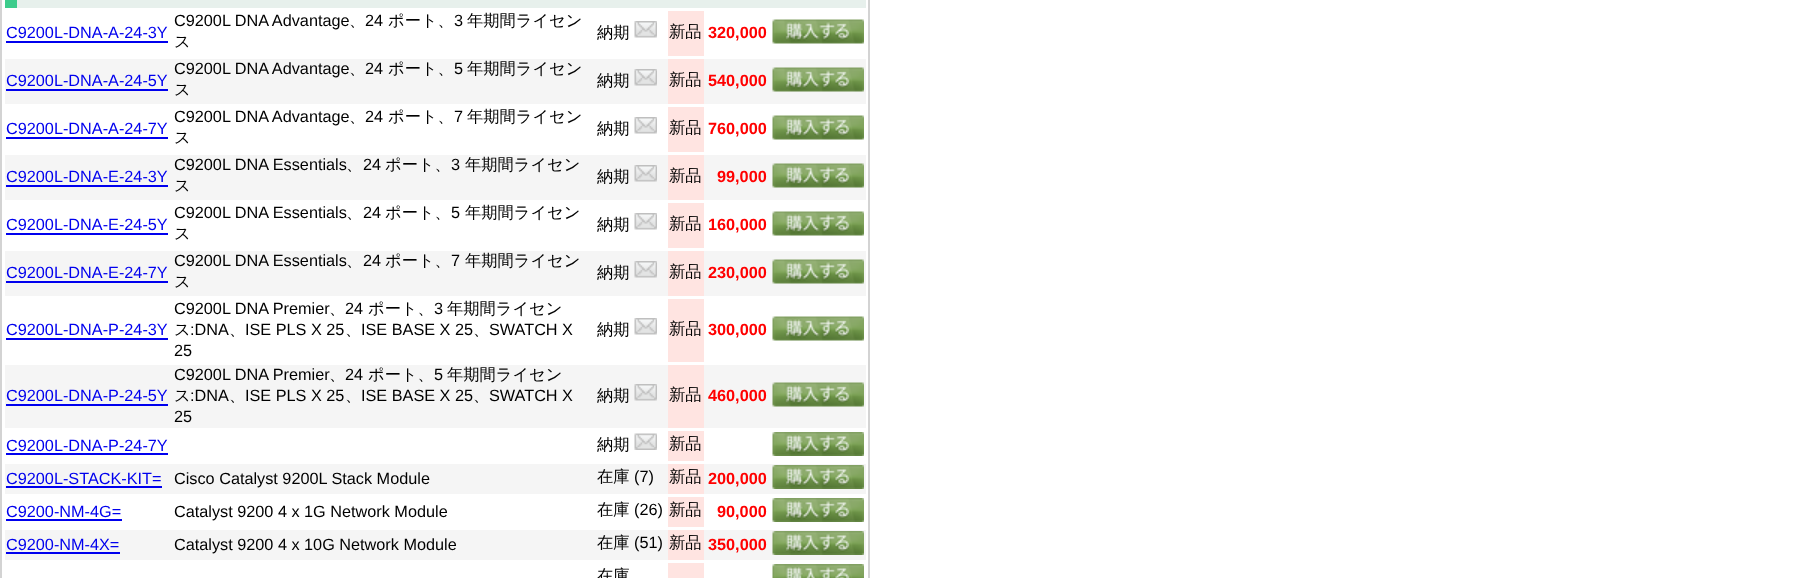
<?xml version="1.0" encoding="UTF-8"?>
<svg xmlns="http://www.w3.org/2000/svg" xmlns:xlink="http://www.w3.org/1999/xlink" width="1814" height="578">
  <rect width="100%" height="100%" fill="#ffffff" />
  <rect x="1" y="-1" width="868" height="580" fill="none" stroke="#d3d3d3" stroke-width="2" />
  <rect x="17" width="849" height="8" fill="#e7f0ec" />
  <rect x="5" width="12" height="8" fill="#3dcc8c" />
  <rect x="6" y="41" width="162" height="2" fill="#0000ee" />
  <image x="634" y="21" width="23" height="17" xlink:href="image1.png" />
  <rect x="668" y="11" width="36" height="45" fill="#ffe4e1" />
  <image x="772" y="19" width="92" height="25" xlink:href="image2.png" />
  <rect x="5" y="59" width="861" height="45" fill="#f5f5f5" />
  <rect x="6" y="89" width="162" height="2" fill="#0000ee" />
  <image x="634" y="69" width="23" height="17" xlink:href="image3.png" />
  <rect x="668" y="59" width="36" height="45" fill="#ffe4e1" />
  <image x="772" y="67" width="92" height="25" xlink:href="image4.png" />
  <rect x="6" y="137" width="162" height="2" fill="#0000ee" />
  <image x="634" y="117" width="23" height="17" xlink:href="image1.png" />
  <rect x="668" y="107" width="36" height="45" fill="#ffe4e1" />
  <image x="772" y="115" width="92" height="25" xlink:href="image2.png" />
  <rect x="5" y="155" width="861" height="45" fill="#f5f5f5" />
  <rect x="6" y="185" width="162" height="2" fill="#0000ee" />
  <image x="634" y="165" width="23" height="17" xlink:href="image3.png" />
  <rect x="668" y="155" width="36" height="45" fill="#ffe4e1" />
  <image x="772" y="163" width="92" height="25" xlink:href="image4.png" />
  <rect x="6" y="233" width="162" height="2" fill="#0000ee" />
  <image x="634" y="213" width="23" height="17" xlink:href="image1.png" />
  <rect x="668" y="203" width="36" height="45" fill="#ffe4e1" />
  <image x="772" y="211" width="92" height="25" xlink:href="image2.png" />
  <rect x="5" y="251" width="861" height="45" fill="#f5f5f5" />
  <rect x="6" y="281" width="162" height="2" fill="#0000ee" />
  <image x="634" y="261" width="23" height="17" xlink:href="image3.png" />
  <rect x="668" y="251" width="36" height="45" fill="#ffe4e1" />
  <image x="772" y="259" width="92" height="25" xlink:href="image4.png" />
  <rect x="6" y="338" width="162" height="2" fill="#0000ee" />
  <image x="634" y="318" width="23" height="17" xlink:href="image1.png" />
  <rect x="668" y="299" width="36" height="63" fill="#ffe4e1" />
  <image x="772" y="316" width="92" height="25" xlink:href="image2.png" />
  <rect x="5" y="365" width="861" height="63" fill="#f5f5f5" />
  <rect x="6" y="404" width="162" height="2" fill="#0000ee" />
  <image x="634" y="384" width="23" height="17" xlink:href="image3.png" />
  <rect x="668" y="365" width="36" height="63" fill="#ffe4e1" />
  <image x="772" y="382" width="92" height="25" xlink:href="image4.png" />
  <rect x="6" y="453" width="162" height="2" fill="#0000ee" />
  <image x="634" y="433" width="23" height="17" xlink:href="image5.png" />
  <rect x="668" y="431" width="36" height="30" fill="#ffe4e1" />
  <image x="772" y="432" width="92" height="24" xlink:href="image6.png" />
  <rect x="5" y="464" width="861" height="30" fill="#f5f5f5" />
  <rect x="6" y="486" width="156" height="2" fill="#0000ee" />
  <rect x="668" y="464" width="36" height="30" fill="#ffe4e1" />
  <image x="772" y="465" width="92" height="24" xlink:href="image7.png" />
  <rect x="6" y="519" width="116" height="2" fill="#0000ee" />
  <rect x="668" y="497" width="36" height="30" fill="#ffe4e1" />
  <image x="772" y="498" width="92" height="24" xlink:href="image6.png" />
  <rect x="5" y="530" width="861" height="30" fill="#f5f5f5" />
  <rect x="6" y="552" width="114" height="2" fill="#0000ee" />
  <rect x="668" y="530" width="36" height="30" fill="#ffe4e1" />
  <image x="772" y="531" width="92" height="24" xlink:href="image7.png" />
  <rect x="668" y="563" width="36" height="15" fill="#ffe4e1" />
  <image x="772" y="564" width="92" height="14" xlink:href="image8.png" />
  <text x="6" y="38" style="font-family: Liberation Sans; font-size: 16.25px; fill: #0000ee">C9200L-DNA-A-24-3Y</text>
  <text x="174" y="26" style="font-family: Liberation Sans; font-size: 16.25px; fill: #000000">C9200L DNA Advantage</text>
  <text x="349" y="26" style="font-family: WenQuanYi Zen Hei; font-size: 16.25px; font-weight: 500; fill: #000000">、</text>
  <text x="365" y="26" style="font-family: Liberation Sans; font-size: 16.25px; fill: #000000">24</text>
  <text x="388" y="26" style="font-family: WenQuanYi Zen Hei; font-size: 16.25px; font-weight: 500; fill: #000000">ポート、</text>
  <text x="454" y="26" style="font-family: Liberation Sans; font-size: 16.25px; fill: #000000">3</text>
  <text x="467" y="26" style="font-family: WenQuanYi Zen Hei; font-size: 16.25px; font-weight: 500; fill: #000000">年期間ライセン</text>
  <text x="174" y="47" style="font-family: WenQuanYi Zen Hei; font-size: 16.25px; font-weight: 500; fill: #000000">ス</text>
  <text x="597" y="38" style="font-family: WenQuanYi Zen Hei; font-size: 16.25px; font-weight: 500; fill: #000000">納期</text>
  <text x="669" y="37" style="font-family: WenQuanYi Zen Hei; font-size: 16.25px; font-weight: 500; fill: #000000">新品</text>
  <text x="708" y="38" style="font-family: Liberation Sans; font-size: 16.25px; font-weight: bold; fill: #ff0000">320,000</text>
  <text x="6" y="86" style="font-family: Liberation Sans; font-size: 16.25px; fill: #0000ee">C9200L-DNA-A-24-5Y</text>
  <text x="174" y="74" style="font-family: Liberation Sans; font-size: 16.25px; fill: #000000">C9200L DNA Advantage</text>
  <text x="349" y="74" style="font-family: WenQuanYi Zen Hei; font-size: 16.25px; font-weight: 500; fill: #000000">、</text>
  <text x="365" y="74" style="font-family: Liberation Sans; font-size: 16.25px; fill: #000000">24</text>
  <text x="388" y="74" style="font-family: WenQuanYi Zen Hei; font-size: 16.25px; font-weight: 500; fill: #000000">ポート、</text>
  <text x="454" y="74" style="font-family: Liberation Sans; font-size: 16.25px; fill: #000000">5</text>
  <text x="467" y="74" style="font-family: WenQuanYi Zen Hei; font-size: 16.25px; font-weight: 500; fill: #000000">年期間ライセン</text>
  <text x="174" y="95" style="font-family: WenQuanYi Zen Hei; font-size: 16.25px; font-weight: 500; fill: #000000">ス</text>
  <text x="597" y="86" style="font-family: WenQuanYi Zen Hei; font-size: 16.25px; font-weight: 500; fill: #000000">納期</text>
  <text x="669" y="85" style="font-family: WenQuanYi Zen Hei; font-size: 16.25px; font-weight: 500; fill: #000000">新品</text>
  <text x="708" y="86" style="font-family: Liberation Sans; font-size: 16.25px; font-weight: bold; fill: #ff0000">540,000</text>
  <text x="6" y="134" style="font-family: Liberation Sans; font-size: 16.25px; fill: #0000ee">C9200L-DNA-A-24-7Y</text>
  <text x="174" y="122" style="font-family: Liberation Sans; font-size: 16.25px; fill: #000000">C9200L DNA Advantage</text>
  <text x="349" y="122" style="font-family: WenQuanYi Zen Hei; font-size: 16.25px; font-weight: 500; fill: #000000">、</text>
  <text x="365" y="122" style="font-family: Liberation Sans; font-size: 16.25px; fill: #000000">24</text>
  <text x="388" y="122" style="font-family: WenQuanYi Zen Hei; font-size: 16.25px; font-weight: 500; fill: #000000">ポート、</text>
  <text x="454" y="122" style="font-family: Liberation Sans; font-size: 16.25px; fill: #000000">7</text>
  <text x="467" y="122" style="font-family: WenQuanYi Zen Hei; font-size: 16.25px; font-weight: 500; fill: #000000">年期間ライセン</text>
  <text x="174" y="143" style="font-family: WenQuanYi Zen Hei; font-size: 16.25px; font-weight: 500; fill: #000000">ス</text>
  <text x="597" y="134" style="font-family: WenQuanYi Zen Hei; font-size: 16.25px; font-weight: 500; fill: #000000">納期</text>
  <text x="669" y="133" style="font-family: WenQuanYi Zen Hei; font-size: 16.25px; font-weight: 500; fill: #000000">新品</text>
  <text x="708" y="134" style="font-family: Liberation Sans; font-size: 16.25px; font-weight: bold; fill: #ff0000">760,000</text>
  <text x="6" y="182" style="font-family: Liberation Sans; font-size: 16.25px; fill: #0000ee">C9200L-DNA-E-24-3Y</text>
  <text x="174" y="170" style="font-family: Liberation Sans; font-size: 16.25px; fill: #000000">C9200L DNA Essentials</text>
  <text x="346" y="170" style="font-family: WenQuanYi Zen Hei; font-size: 16.25px; font-weight: 500; fill: #000000">、</text>
  <text x="363" y="170" style="font-family: Liberation Sans; font-size: 16.25px; fill: #000000">24</text>
  <text x="385" y="170" style="font-family: WenQuanYi Zen Hei; font-size: 16.25px; font-weight: 500; fill: #000000">ポート、</text>
  <text x="451" y="170" style="font-family: Liberation Sans; font-size: 16.25px; fill: #000000">3</text>
  <text x="465" y="170" style="font-family: WenQuanYi Zen Hei; font-size: 16.25px; font-weight: 500; fill: #000000">年期間ライセン</text>
  <text x="174" y="191" style="font-family: WenQuanYi Zen Hei; font-size: 16.25px; font-weight: 500; fill: #000000">ス</text>
  <text x="597" y="182" style="font-family: WenQuanYi Zen Hei; font-size: 16.25px; font-weight: 500; fill: #000000">納期</text>
  <text x="669" y="181" style="font-family: WenQuanYi Zen Hei; font-size: 16.25px; font-weight: 500; fill: #000000">新品</text>
  <text x="717" y="182" style="font-family: Liberation Sans; font-size: 16.25px; font-weight: bold; fill: #ff0000">99,000</text>
  <text x="6" y="230" style="font-family: Liberation Sans; font-size: 16.25px; fill: #0000ee">C9200L-DNA-E-24-5Y</text>
  <text x="174" y="218" style="font-family: Liberation Sans; font-size: 16.25px; fill: #000000">C9200L DNA Essentials</text>
  <text x="346" y="218" style="font-family: WenQuanYi Zen Hei; font-size: 16.25px; font-weight: 500; fill: #000000">、</text>
  <text x="363" y="218" style="font-family: Liberation Sans; font-size: 16.25px; fill: #000000">24</text>
  <text x="385" y="218" style="font-family: WenQuanYi Zen Hei; font-size: 16.25px; font-weight: 500; fill: #000000">ポート、</text>
  <text x="451" y="218" style="font-family: Liberation Sans; font-size: 16.25px; fill: #000000">5</text>
  <text x="465" y="218" style="font-family: WenQuanYi Zen Hei; font-size: 16.25px; font-weight: 500; fill: #000000">年期間ライセン</text>
  <text x="174" y="239" style="font-family: WenQuanYi Zen Hei; font-size: 16.25px; font-weight: 500; fill: #000000">ス</text>
  <text x="597" y="230" style="font-family: WenQuanYi Zen Hei; font-size: 16.25px; font-weight: 500; fill: #000000">納期</text>
  <text x="669" y="229" style="font-family: WenQuanYi Zen Hei; font-size: 16.25px; font-weight: 500; fill: #000000">新品</text>
  <text x="708" y="230" style="font-family: Liberation Sans; font-size: 16.25px; font-weight: bold; fill: #ff0000">160,000</text>
  <text x="6" y="278" style="font-family: Liberation Sans; font-size: 16.25px; fill: #0000ee">C9200L-DNA-E-24-7Y</text>
  <text x="174" y="266" style="font-family: Liberation Sans; font-size: 16.25px; fill: #000000">C9200L DNA Essentials</text>
  <text x="346" y="266" style="font-family: WenQuanYi Zen Hei; font-size: 16.25px; font-weight: 500; fill: #000000">、</text>
  <text x="363" y="266" style="font-family: Liberation Sans; font-size: 16.25px; fill: #000000">24</text>
  <text x="385" y="266" style="font-family: WenQuanYi Zen Hei; font-size: 16.25px; font-weight: 500; fill: #000000">ポート、</text>
  <text x="451" y="266" style="font-family: Liberation Sans; font-size: 16.25px; fill: #000000">7</text>
  <text x="465" y="266" style="font-family: WenQuanYi Zen Hei; font-size: 16.25px; font-weight: 500; fill: #000000">年期間ライセン</text>
  <text x="174" y="287" style="font-family: WenQuanYi Zen Hei; font-size: 16.25px; font-weight: 500; fill: #000000">ス</text>
  <text x="597" y="278" style="font-family: WenQuanYi Zen Hei; font-size: 16.25px; font-weight: 500; fill: #000000">納期</text>
  <text x="669" y="277" style="font-family: WenQuanYi Zen Hei; font-size: 16.25px; font-weight: 500; fill: #000000">新品</text>
  <text x="708" y="278" style="font-family: Liberation Sans; font-size: 16.25px; font-weight: bold; fill: #ff0000">230,000</text>
  <text x="6" y="335" style="font-family: Liberation Sans; font-size: 16.25px; fill: #0000ee">C9200L-DNA-P-24-3Y</text>
  <text x="174" y="314" style="font-family: Liberation Sans; font-size: 16.25px; fill: #000000">C9200L DNA Premier</text>
  <text x="329" y="314" style="font-family: WenQuanYi Zen Hei; font-size: 16.25px; font-weight: 500; fill: #000000">、</text>
  <text x="345" y="314" style="font-family: Liberation Sans; font-size: 16.25px; fill: #000000">24</text>
  <text x="368" y="314" style="font-family: WenQuanYi Zen Hei; font-size: 16.25px; font-weight: 500; fill: #000000">ポート、</text>
  <text x="434" y="314" style="font-family: Liberation Sans; font-size: 16.25px; fill: #000000">3</text>
  <text x="447" y="314" style="font-family: WenQuanYi Zen Hei; font-size: 16.25px; font-weight: 500; fill: #000000">年期間ライセン</text>
  <text x="174" y="335" style="font-family: WenQuanYi Zen Hei; font-size: 16.25px; font-weight: 500; fill: #000000">ス</text>
  <text x="190" y="335" style="font-family: Liberation Sans; font-size: 16.25px; fill: #000000">:DNA</text>
  <text x="229" y="335" style="font-family: WenQuanYi Zen Hei; font-size: 16.25px; font-weight: 500; fill: #000000">、</text>
  <text x="245" y="335" style="font-family: Liberation Sans; font-size: 16.25px; fill: #000000">ISE PLS X 25</text>
  <text x="345" y="335" style="font-family: WenQuanYi Zen Hei; font-size: 16.25px; font-weight: 500; fill: #000000">、</text>
  <text x="361" y="335" style="font-family: Liberation Sans; font-size: 16.25px; fill: #000000">ISE BASE X 25</text>
  <text x="473" y="335" style="font-family: WenQuanYi Zen Hei; font-size: 16.25px; font-weight: 500; fill: #000000">、</text>
  <text x="489" y="335" style="font-family: Liberation Sans; font-size: 16.25px; fill: #000000">SWATCH X</text>
  <text x="174" y="356" style="font-family: Liberation Sans; font-size: 16.25px; fill: #000000">25</text>
  <text x="597" y="335" style="font-family: WenQuanYi Zen Hei; font-size: 16.25px; font-weight: 500; fill: #000000">納期</text>
  <text x="669" y="334" style="font-family: WenQuanYi Zen Hei; font-size: 16.25px; font-weight: 500; fill: #000000">新品</text>
  <text x="708" y="335" style="font-family: Liberation Sans; font-size: 16.25px; font-weight: bold; fill: #ff0000">300,000</text>
  <text x="6" y="401" style="font-family: Liberation Sans; font-size: 16.25px; fill: #0000ee">C9200L-DNA-P-24-5Y</text>
  <text x="174" y="380" style="font-family: Liberation Sans; font-size: 16.25px; fill: #000000">C9200L DNA Premier</text>
  <text x="329" y="380" style="font-family: WenQuanYi Zen Hei; font-size: 16.25px; font-weight: 500; fill: #000000">、</text>
  <text x="345" y="380" style="font-family: Liberation Sans; font-size: 16.25px; fill: #000000">24</text>
  <text x="368" y="380" style="font-family: WenQuanYi Zen Hei; font-size: 16.25px; font-weight: 500; fill: #000000">ポート、</text>
  <text x="434" y="380" style="font-family: Liberation Sans; font-size: 16.25px; fill: #000000">5</text>
  <text x="447" y="380" style="font-family: WenQuanYi Zen Hei; font-size: 16.25px; font-weight: 500; fill: #000000">年期間ライセン</text>
  <text x="174" y="401" style="font-family: WenQuanYi Zen Hei; font-size: 16.25px; font-weight: 500; fill: #000000">ス</text>
  <text x="190" y="401" style="font-family: Liberation Sans; font-size: 16.25px; fill: #000000">:DNA</text>
  <text x="229" y="401" style="font-family: WenQuanYi Zen Hei; font-size: 16.25px; font-weight: 500; fill: #000000">、</text>
  <text x="245" y="401" style="font-family: Liberation Sans; font-size: 16.25px; fill: #000000">ISE PLS X 25</text>
  <text x="345" y="401" style="font-family: WenQuanYi Zen Hei; font-size: 16.25px; font-weight: 500; fill: #000000">、</text>
  <text x="361" y="401" style="font-family: Liberation Sans; font-size: 16.25px; fill: #000000">ISE BASE X 25</text>
  <text x="473" y="401" style="font-family: WenQuanYi Zen Hei; font-size: 16.25px; font-weight: 500; fill: #000000">、</text>
  <text x="489" y="401" style="font-family: Liberation Sans; font-size: 16.25px; fill: #000000">SWATCH X</text>
  <text x="174" y="422" style="font-family: Liberation Sans; font-size: 16.25px; fill: #000000">25</text>
  <text x="597" y="401" style="font-family: WenQuanYi Zen Hei; font-size: 16.25px; font-weight: 500; fill: #000000">納期</text>
  <text x="669" y="400" style="font-family: WenQuanYi Zen Hei; font-size: 16.25px; font-weight: 500; fill: #000000">新品</text>
  <text x="708" y="401" style="font-family: Liberation Sans; font-size: 16.25px; font-weight: bold; fill: #ff0000">460,000</text>
  <text x="6" y="451" style="font-family: Liberation Sans; font-size: 16.25px; fill: #0000ee">C9200L-DNA-P-24-7Y</text>
  <text x="597" y="450" style="font-family: WenQuanYi Zen Hei; font-size: 16.25px; font-weight: 500; fill: #000000">納期</text>
  <text x="669" y="449" style="font-family: WenQuanYi Zen Hei; font-size: 16.25px; font-weight: 500; fill: #000000">新品</text>
  <text x="6" y="484" style="font-family: Liberation Sans; font-size: 16.25px; fill: #0000ee">C9200L-STACK-KIT=</text>
  <text x="174" y="484" style="font-family: Liberation Sans; font-size: 16.25px; fill: #000000">Cisco Catalyst 9200L Stack Module</text>
  <text x="597" y="482" style="font-family: WenQuanYi Zen Hei; font-size: 16.25px; font-weight: 500; fill: #000000">在庫</text>
  <text x="634" y="482" style="font-family: Liberation Sans; font-size: 16.25px; fill: #000000">(7)</text>
  <text x="669" y="482" style="font-family: WenQuanYi Zen Hei; font-size: 16.25px; font-weight: 500; fill: #000000">新品</text>
  <text x="708" y="484" style="font-family: Liberation Sans; font-size: 16.25px; font-weight: bold; fill: #ff0000">200,000</text>
  <text x="6" y="517" style="font-family: Liberation Sans; font-size: 16.25px; fill: #0000ee">C9200-NM-4G=</text>
  <text x="174" y="517" style="font-family: Liberation Sans; font-size: 16.25px; fill: #000000">Catalyst 9200 4 x 1G Network Module</text>
  <text x="597" y="515" style="font-family: WenQuanYi Zen Hei; font-size: 16.25px; font-weight: 500; fill: #000000">在庫</text>
  <text x="634" y="515" style="font-family: Liberation Sans; font-size: 16.25px; fill: #000000">(26)</text>
  <text x="669" y="515" style="font-family: WenQuanYi Zen Hei; font-size: 16.25px; font-weight: 500; fill: #000000">新品</text>
  <text x="717" y="517" style="font-family: Liberation Sans; font-size: 16.25px; font-weight: bold; fill: #ff0000">90,000</text>
  <text x="6" y="550" style="font-family: Liberation Sans; font-size: 16.25px; fill: #0000ee">C9200-NM-4X=</text>
  <text x="174" y="550" style="font-family: Liberation Sans; font-size: 16.25px; fill: #000000">Catalyst 9200 4 x 10G Network Module</text>
  <text x="597" y="548" style="font-family: WenQuanYi Zen Hei; font-size: 16.25px; font-weight: 500; fill: #000000">在庫</text>
  <text x="634" y="548" style="font-family: Liberation Sans; font-size: 16.25px; fill: #000000">(51)</text>
  <text x="669" y="548" style="font-family: WenQuanYi Zen Hei; font-size: 16.25px; font-weight: 500; fill: #000000">新品</text>
  <text x="708" y="550" style="font-family: Liberation Sans; font-size: 16.25px; font-weight: bold; fill: #ff0000">350,000</text>
  <text x="597" y="581" style="font-family: WenQuanYi Zen Hei; font-size: 16.25px; font-weight: 500; fill: #000000">在庫</text>
</svg>
